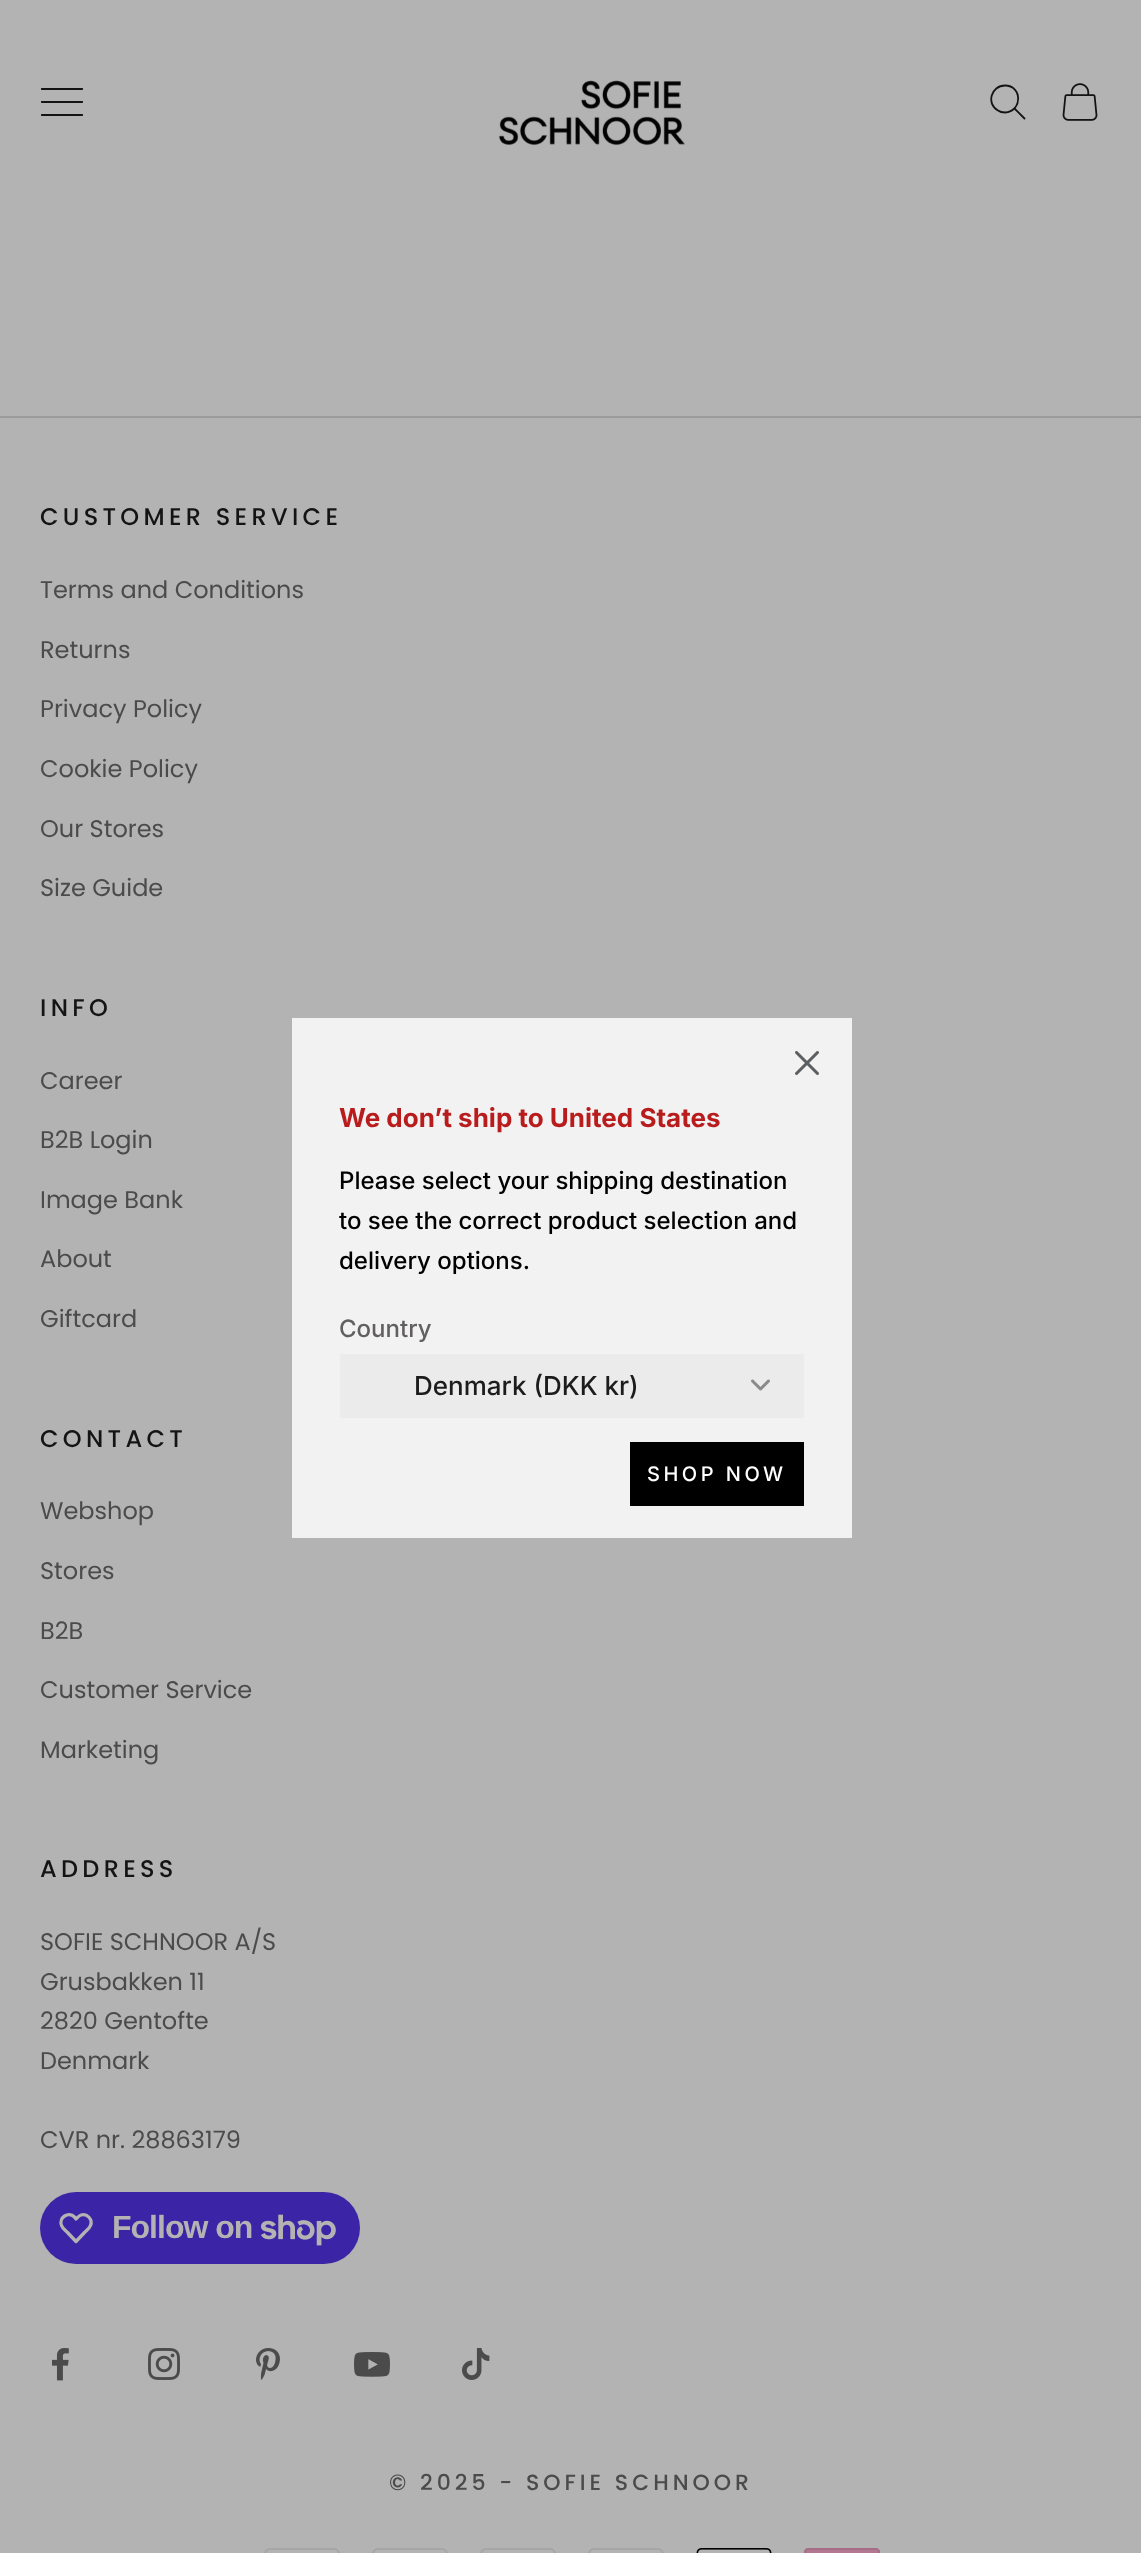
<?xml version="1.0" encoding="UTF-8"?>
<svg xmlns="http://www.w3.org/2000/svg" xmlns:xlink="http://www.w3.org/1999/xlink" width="1141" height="2553">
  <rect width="100%" height="100%" fill="#b3b3b3" />
  <path d="M 42 115 h 40 m -40 -13 h 40 m -40 -13 h 40" fill="none" stroke="#141414" stroke-width="1.8" stroke-linecap="square" />
  <image x="498" y="80" width="187" height="66" xlink:href="image1.png" />
  <path d="M 1005 85.5 c -14 0 -19 18.5 -7 25 c 2 1.5 4.5 2 7 2 c 17.5 -1 17.5 -27 0 -27 z" fill="none" stroke="#141414" stroke-width="1.8" />
  <path d="M 1015 109 l 9.5 9.5" fill="none" stroke="#141414" stroke-width="1.8" stroke-linecap="round" />
  <image x="1062" y="83" width="36" height="38" xlink:href="image2.png" />
  <rect y="416" width="1141" height="2" fill="#9b9b9b" />
  <rect x="40" y="2192" width="320" height="72" rx="36" fill="#3b24a5" />
  <path d="M 74.5 2217 l 1.5 2 c 1.5 -1.5 3 -3.5 5 -4 c 6 -2 12 4.5 9.5 10.5 c -1 3 -4 5 -6 7 l -8.5 9 l -8.5 -9 c -2 -2 -5 -4 -6 -7 c -3 -8 7 -14.5 13 -8.5 z" fill="none" stroke="#b3b3b3" stroke-width="3.3" stroke-linejoin="round" />
  <image x="261" y="2214" width="75" height="32" xlink:href="image3.png" />
  <image x="52" y="2348" width="17" height="33" xlink:href="image4.png" />
  <image x="148" y="2348" width="32" height="32" xlink:href="image5.png" />
  <image x="256" y="2348" width="24" height="32" xlink:href="image6.png" />
  <image x="354" y="2352" width="36" height="25" xlink:href="image7.png" />
  <image x="462" y="2348" width="28" height="32" xlink:href="image8.png" />
  <image x="264" y="2548" width="76" height="5" xlink:href="image9.png" />
  <image x="372" y="2548" width="76" height="5" xlink:href="image9.png" />
  <image x="480" y="2548" width="76" height="5" xlink:href="image9.png" />
  <image x="588" y="2548" width="76" height="5" xlink:href="image9.png" />
  <image x="696" y="2548" width="76" height="5" xlink:href="image10.png" />
  <image x="804" y="2548" width="76" height="5" xlink:href="image11.png" />
  <rect x="292" y="1018" width="560" height="520" fill="#f2f2f2" />
  <image x="795" y="1051" width="24" height="24" xlink:href="image12.png" />
  <rect x="340" y="1354" width="464" height="64" fill="#ebebeb" />
  <image x="751" y="1379" width="19" height="12" xlink:href="image13.png" />
  <rect x="630" y="1442" width="174" height="64" fill="#000000" />
  <text x="40" y="525" style="font-family: Poppins; font-size: 24px; font-weight: 500; letter-spacing: 4.3px; fill: #141414">CUSTOMER SERVICE</text>
  <text x="40" y="598" style="font-family: Poppins; font-size: 24px; fill: #4b4b4b">Terms and Conditions</text>
  <text x="40" y="658" style="font-family: Poppins; font-size: 24px; fill: #4b4b4b">Returns</text>
  <text x="40" y="717" style="font-family: Poppins; font-size: 24px; fill: #4b4b4b">Privacy Policy</text>
  <text x="40" y="777" style="font-family: Poppins; font-size: 24px; fill: #4b4b4b">Cookie Policy</text>
  <text x="40" y="837" style="font-family: Poppins; font-size: 24px; fill: #4b4b4b">Our Stores</text>
  <text x="40" y="896" style="font-family: Poppins; font-size: 24px; fill: #4b4b4b">Size Guide</text>
  <text x="40" y="1016" style="font-family: Poppins; font-size: 24px; font-weight: 500; letter-spacing: 4.3px; fill: #141414">INFO</text>
  <text x="40" y="1089" style="font-family: Poppins; font-size: 24px; fill: #4b4b4b">Career</text>
  <text x="40" y="1148" style="font-family: Poppins; font-size: 24px; fill: #4b4b4b">B2B Login</text>
  <text x="40" y="1208" style="font-family: Poppins; font-size: 24px; fill: #4b4b4b">Image Bank</text>
  <text x="40" y="1267" style="font-family: Poppins; font-size: 24px; fill: #4b4b4b">About</text>
  <text x="40" y="1327" style="font-family: Poppins; font-size: 24px; fill: #4b4b4b">Giftcard</text>
  <text x="40" y="1447" style="font-family: Poppins; font-size: 24px; font-weight: 500; letter-spacing: 4.3px; fill: #141414">CONTACT</text>
  <text x="40" y="1519" style="font-family: Poppins; font-size: 24px; fill: #4b4b4b">Webshop</text>
  <text x="40" y="1579" style="font-family: Poppins; font-size: 24px; fill: #4b4b4b">Stores</text>
  <text x="40" y="1639" style="font-family: Poppins; font-size: 24px; fill: #4b4b4b">B2B</text>
  <text x="40" y="1698" style="font-family: Poppins; font-size: 24px; fill: #4b4b4b">Customer Service</text>
  <text x="40" y="1758" style="font-family: Poppins; font-size: 24px; fill: #4b4b4b">Marketing</text>
  <text x="40" y="1877" style="font-family: Poppins; font-size: 24px; font-weight: 500; letter-spacing: 4.3px; fill: #141414">ADDRESS</text>
  <text x="40" y="1950" style="font-family: Poppins; font-size: 24px; fill: #4b4b4b">SOFIE SCHNOOR A/S</text>
  <text x="40" y="1990" style="font-family: Poppins; font-size: 24px; fill: #4b4b4b">Grusbakken 11</text>
  <text x="40" y="2029" style="font-family: Poppins; font-size: 24px; fill: #4b4b4b">2820 Gentofte</text>
  <text x="40" y="2069" style="font-family: Poppins; font-size: 24px; fill: #4b4b4b">Denmark</text>
  <text x="40" y="2148" style="font-family: Poppins; font-size: 24px; fill: #4b4b4b">CVR nr. 28863179</text>
  <text x="112" y="2238" style="font-family: Liberation Sans; font-size: 32px; font-weight: bold; letter-spacing: -1px; fill: #b3b3b3">Follow on</text>
  <text x="389" y="2490" style="font-family: Poppins; font-size: 22px; font-weight: 500; letter-spacing: 4px; fill: #4b4b4b">© 2025 - SOFIE SCHNOOR</text>
  <text x="339" y="1127" style="font-family: Inter; font-size: 26px; font-weight: bold; fill: #b81c1c">We don’t ship to United States</text>
  <text x="339" y="1189" style="font-family: Inter; font-size: 24px; font-weight: 500; fill: #000000">Please select your shipping destination</text>
  <text x="339" y="1229" style="font-family: Inter; font-size: 24px; font-weight: 500; fill: #000000">to see the correct product selection and</text>
  <text x="339" y="1269" style="font-family: Inter; font-size: 24px; font-weight: 500; fill: #000000">delivery options.</text>
  <text x="339" y="1337" style="font-family: Inter; font-size: 24px; font-weight: 500; fill: #615f5f">Country</text>
  <text x="414" y="1395" style="font-family: Inter; font-size: 26px; font-weight: 500; fill: #1c1c1c">Denmark (DKK kr)</text>
  <text x="647" y="1481" style="font-family: Inter; font-size: 20px; font-weight: 500; letter-spacing: 3.5px; fill: #ffffff">SHOP NOW</text>
</svg>
